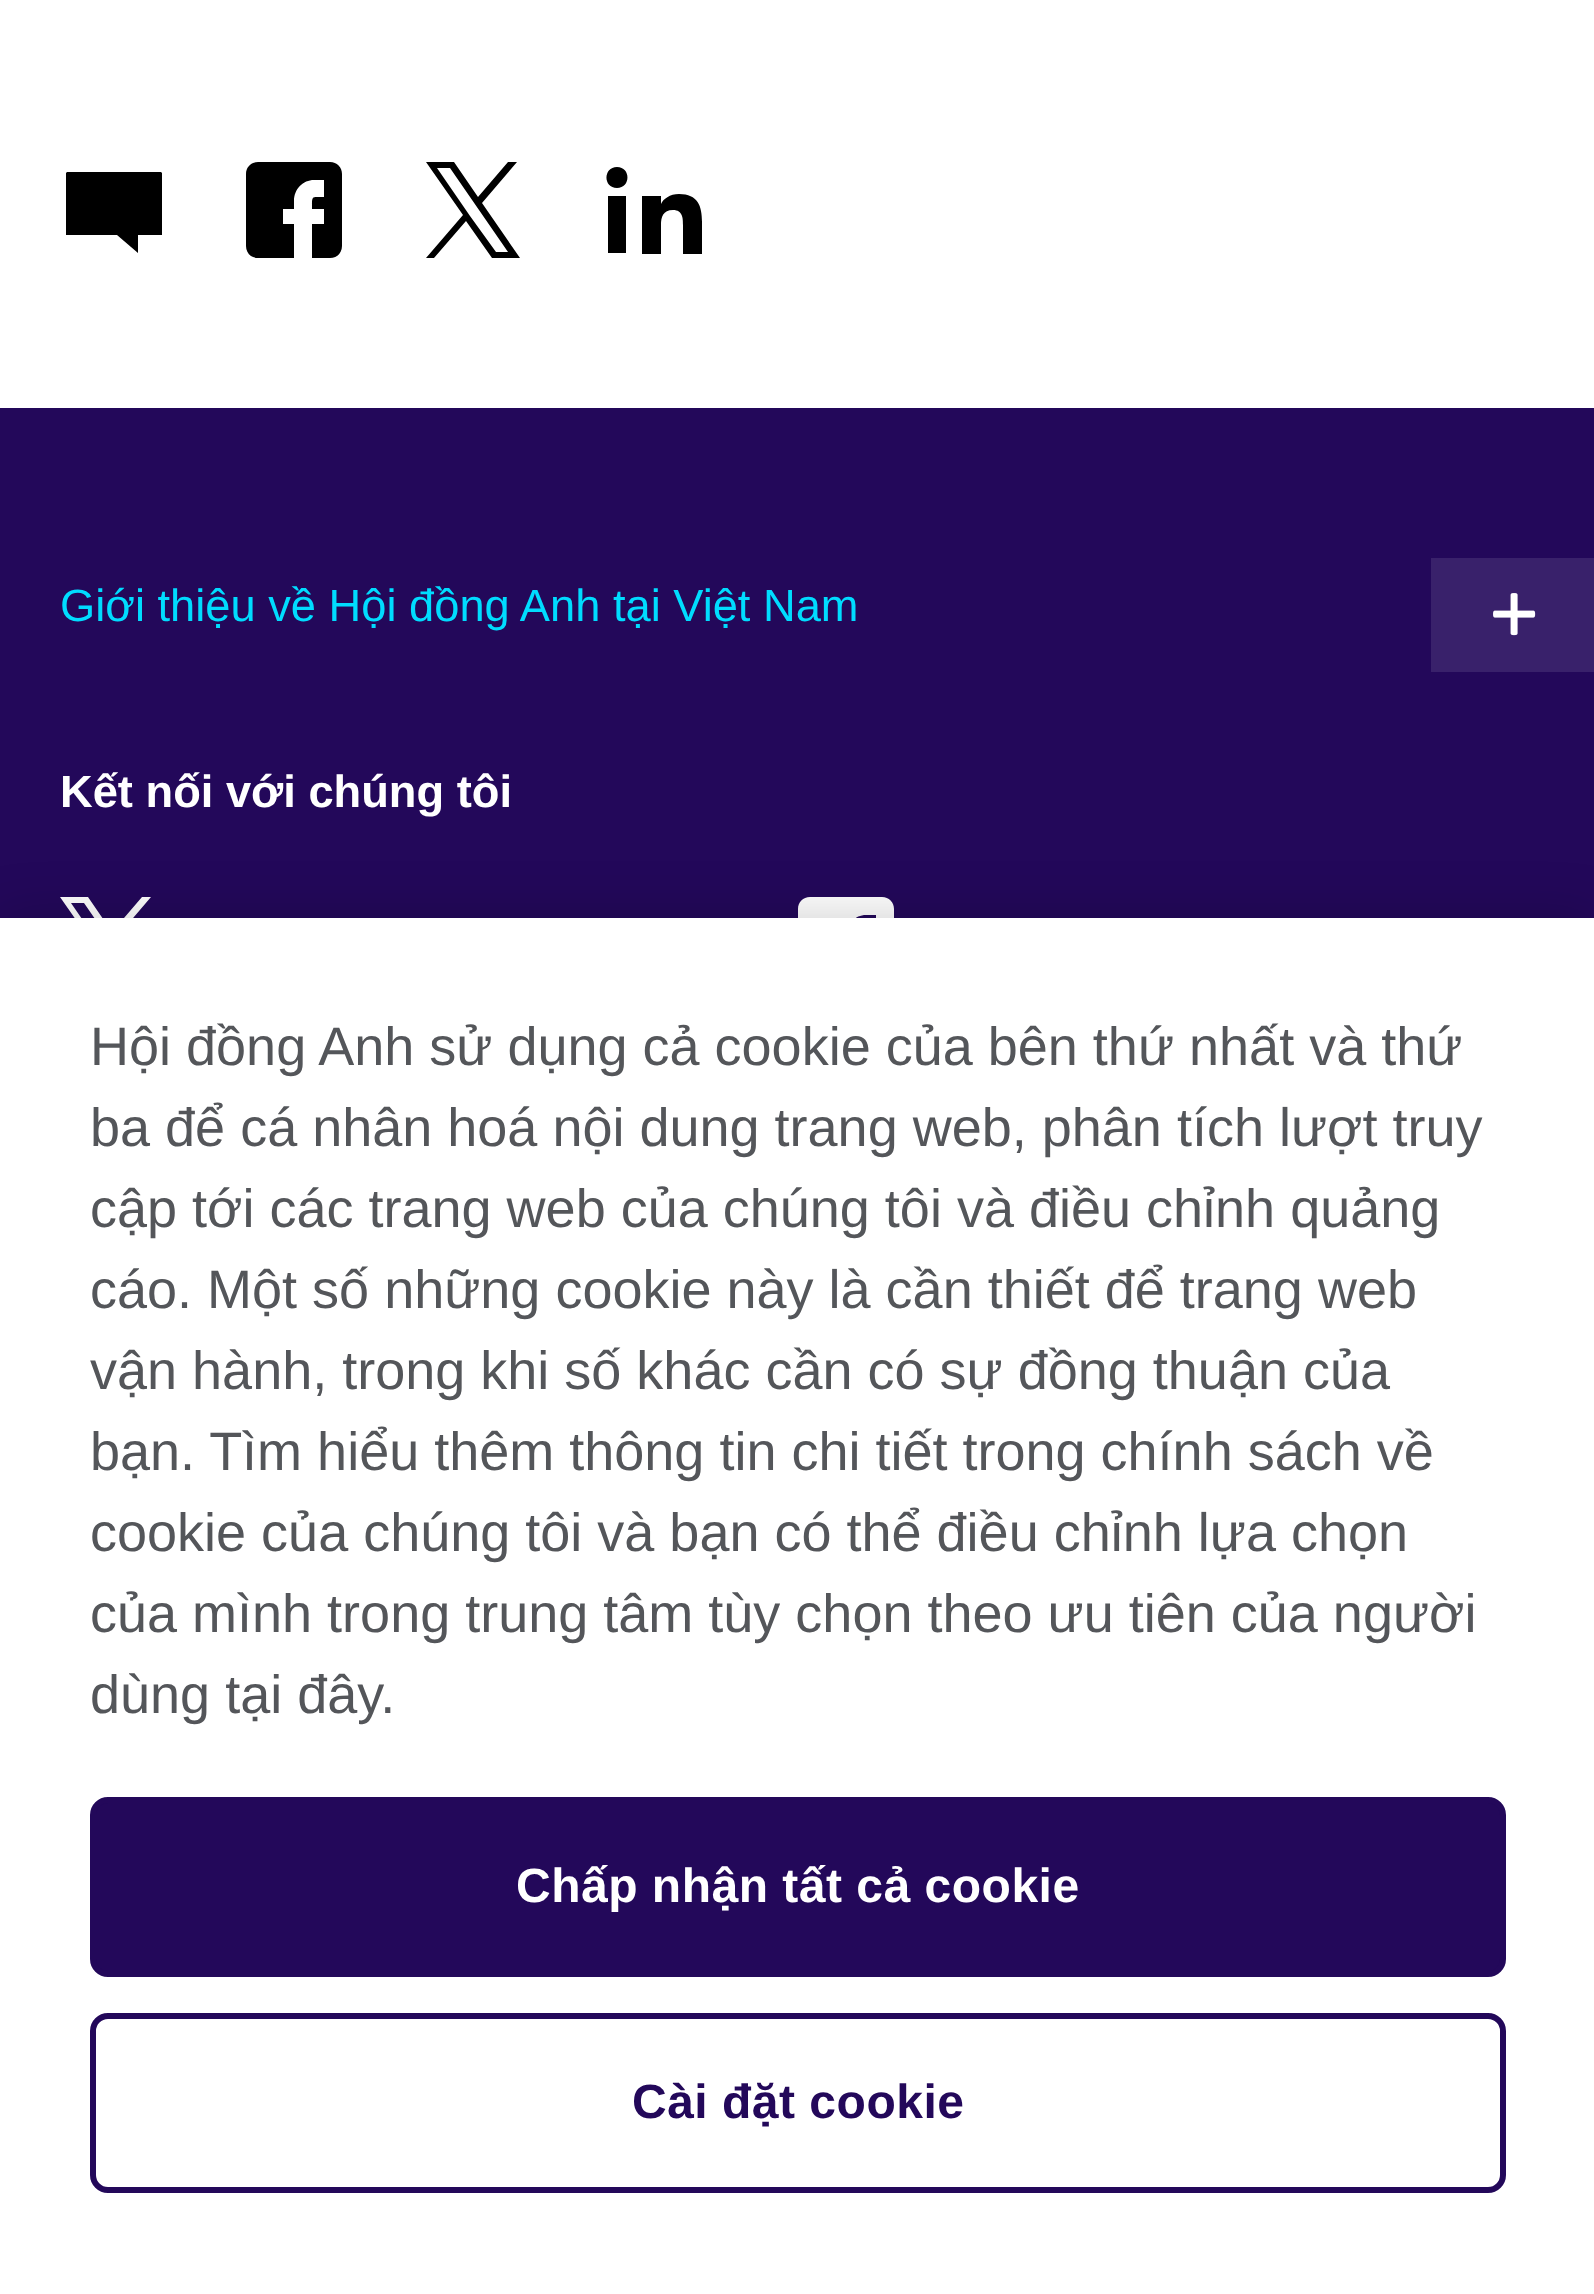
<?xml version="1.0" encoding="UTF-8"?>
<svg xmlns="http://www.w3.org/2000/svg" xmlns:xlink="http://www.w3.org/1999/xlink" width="1594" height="2294">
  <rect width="100%" height="100%" fill="#ffffff" />
  <path d="M 66 173 l 1 -1 h 94 l 1 1 v 62 h -1 h -23 v 18 l -21 -18 h -50 h -1 z" fill="#000000" />
  <path d="M 330 162 h -72 c -7 0 -12 5 -12 12 v 72 c 0 7 5 12 12 12 h 36 v -34 h -11 v -15 h 11 v -8 c 0 -12 9 -21 20 -21 h 10 v 17 c -13 0 -12 -2 -12 12 h 12 v 15 h -12 v 34 h 18 c 7 0 12 -5 12 -12 v -72 c 0 -7 -5 -12 -12 -12 z" fill="#000000" />
  <path d="M 482 203 l 35 -41 h -9 l -30 35 l -24 -35 h -28 l 37 53 l -37 43 h 8 l 32 -37 l 26 37 h 28 z m -12 13 l -33 -48 h 13 l 58 84 h -12 z" fill="#000000" />
  <path d="M 617 167 c 14 0 14 21 0 21 c -14 0 -14 -21 0 -21 z m -9 29 h 18 v 57 h -18 z m 34 0 h 19 v 8 c 2 -5 9 -10 18 -10 c 19 0 23 12 23 28 v 32 h -19 v -29 c 0 -6 0 -15 -10 -15 c -10 0 -12 7 -12 15 v 29 h -19 z" fill="#000000" fill-rule="evenodd" />
  <rect y="408" width="1594" height="510" fill="#23085a" />
  <rect x="1431" y="558" width="163" height="114" fill="#39216b" />
  <image x="1493" y="593" width="43" height="43" xlink:href="image1.png" />
  <path d="M 116 938 l 35 -41 h -9 l -30 35 l -24 -35 h -28 l 37 53 l -37 43 h 8 l 32 -37 l 26 37 h 28 z m -12 13 l -33 -48 h 13 l 58 84 h -12 z" fill="#ffffff" />
  <path d="M 882 897 h -72 c -7 0 -12 5 -12 12 v 72 c 0 7 5 12 12 12 h 36 v -34 h -11 v -15 h 11 v -8 c 0 -12 9 -21 20 -21 h 10 v 17 c -13 0 -12 -2 -12 12 h 12 v 15 h -12 v 34 h 18 c 7 0 12 -5 12 -12 v -72 c 0 -7 -5 -12 -12 -12 z" fill="#ffffff" />
  <rect y="918" width="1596" height="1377" fill="#000000" fill-opacity="0.2" filter="blur(27px)" />
  <rect y="918" width="1594" height="1376" fill="#ffffff" />
  <rect x="93" y="1800" width="1410" height="174" rx="15" fill="#23085a" stroke="#23085a" stroke-width="6" />
  <rect x="93" y="2016" width="1410" height="174" rx="15" fill="none" stroke="#23085a" stroke-width="6" />
  <text x="60" y="621" style="font-family: Liberation Sans; font-size: 45.25px; fill: #00dcff">Giới thiệu về Hội đồng Anh tại Việt Nam</text>
  <text x="60" y="807" style="font-family: Liberation Sans; font-size: 45.25px; font-weight: bold; fill: #ffffff">Kết nối với chúng tôi</text>
  <text x="90" y="1065" style="font-family: Liberation Sans; font-size: 54px; fill: #54565a">Hội đồng Anh sử dụng cả cookie của bên thứ nhất và thứ</text>
  <text x="90" y="1146" style="font-family: Liberation Sans; font-size: 54px; fill: #54565a">ba để cá nhân hoá nội dung trang web, phân tích lượt truy</text>
  <text x="90" y="1227" style="font-family: Liberation Sans; font-size: 54px; fill: #54565a">cập tới các trang web của chúng tôi và điều chỉnh quảng</text>
  <text x="90" y="1308" style="font-family: Liberation Sans; font-size: 54px; fill: #54565a">cáo. Một số những cookie này là cần thiết để trang web</text>
  <text x="90" y="1389" style="font-family: Liberation Sans; font-size: 54px; fill: #54565a">vận hành, trong khi số khác cần có sự đồng thuận của</text>
  <text x="90" y="1470" style="font-family: Liberation Sans; font-size: 54px; fill: #54565a">bạn. Tìm hiểu thêm thông tin chi tiết trong chính sách về</text>
  <text x="90" y="1551" style="font-family: Liberation Sans; font-size: 54px; fill: #54565a">cookie của chúng tôi và bạn có thể điều chỉnh lựa chọn</text>
  <text x="90" y="1632" style="font-family: Liberation Sans; font-size: 54px; fill: #54565a">của mình trong trung tâm tùy chọn theo ưu tiên của người</text>
  <text x="90" y="1713" style="font-family: Liberation Sans; font-size: 54px; fill: #54565a">dùng tại đây.</text>
  <text x="516" y="1902" style="font-family: Liberation Sans; font-size: 48px; font-weight: bold; letter-spacing: 0.5px; fill: #ffffff">Chấp nhận tất cả cookie</text>
  <text x="632" y="2118" style="font-family: Liberation Sans; font-size: 48px; font-weight: bold; letter-spacing: 0.5px; fill: #23085a">Cài đặt cookie</text>
</svg>
